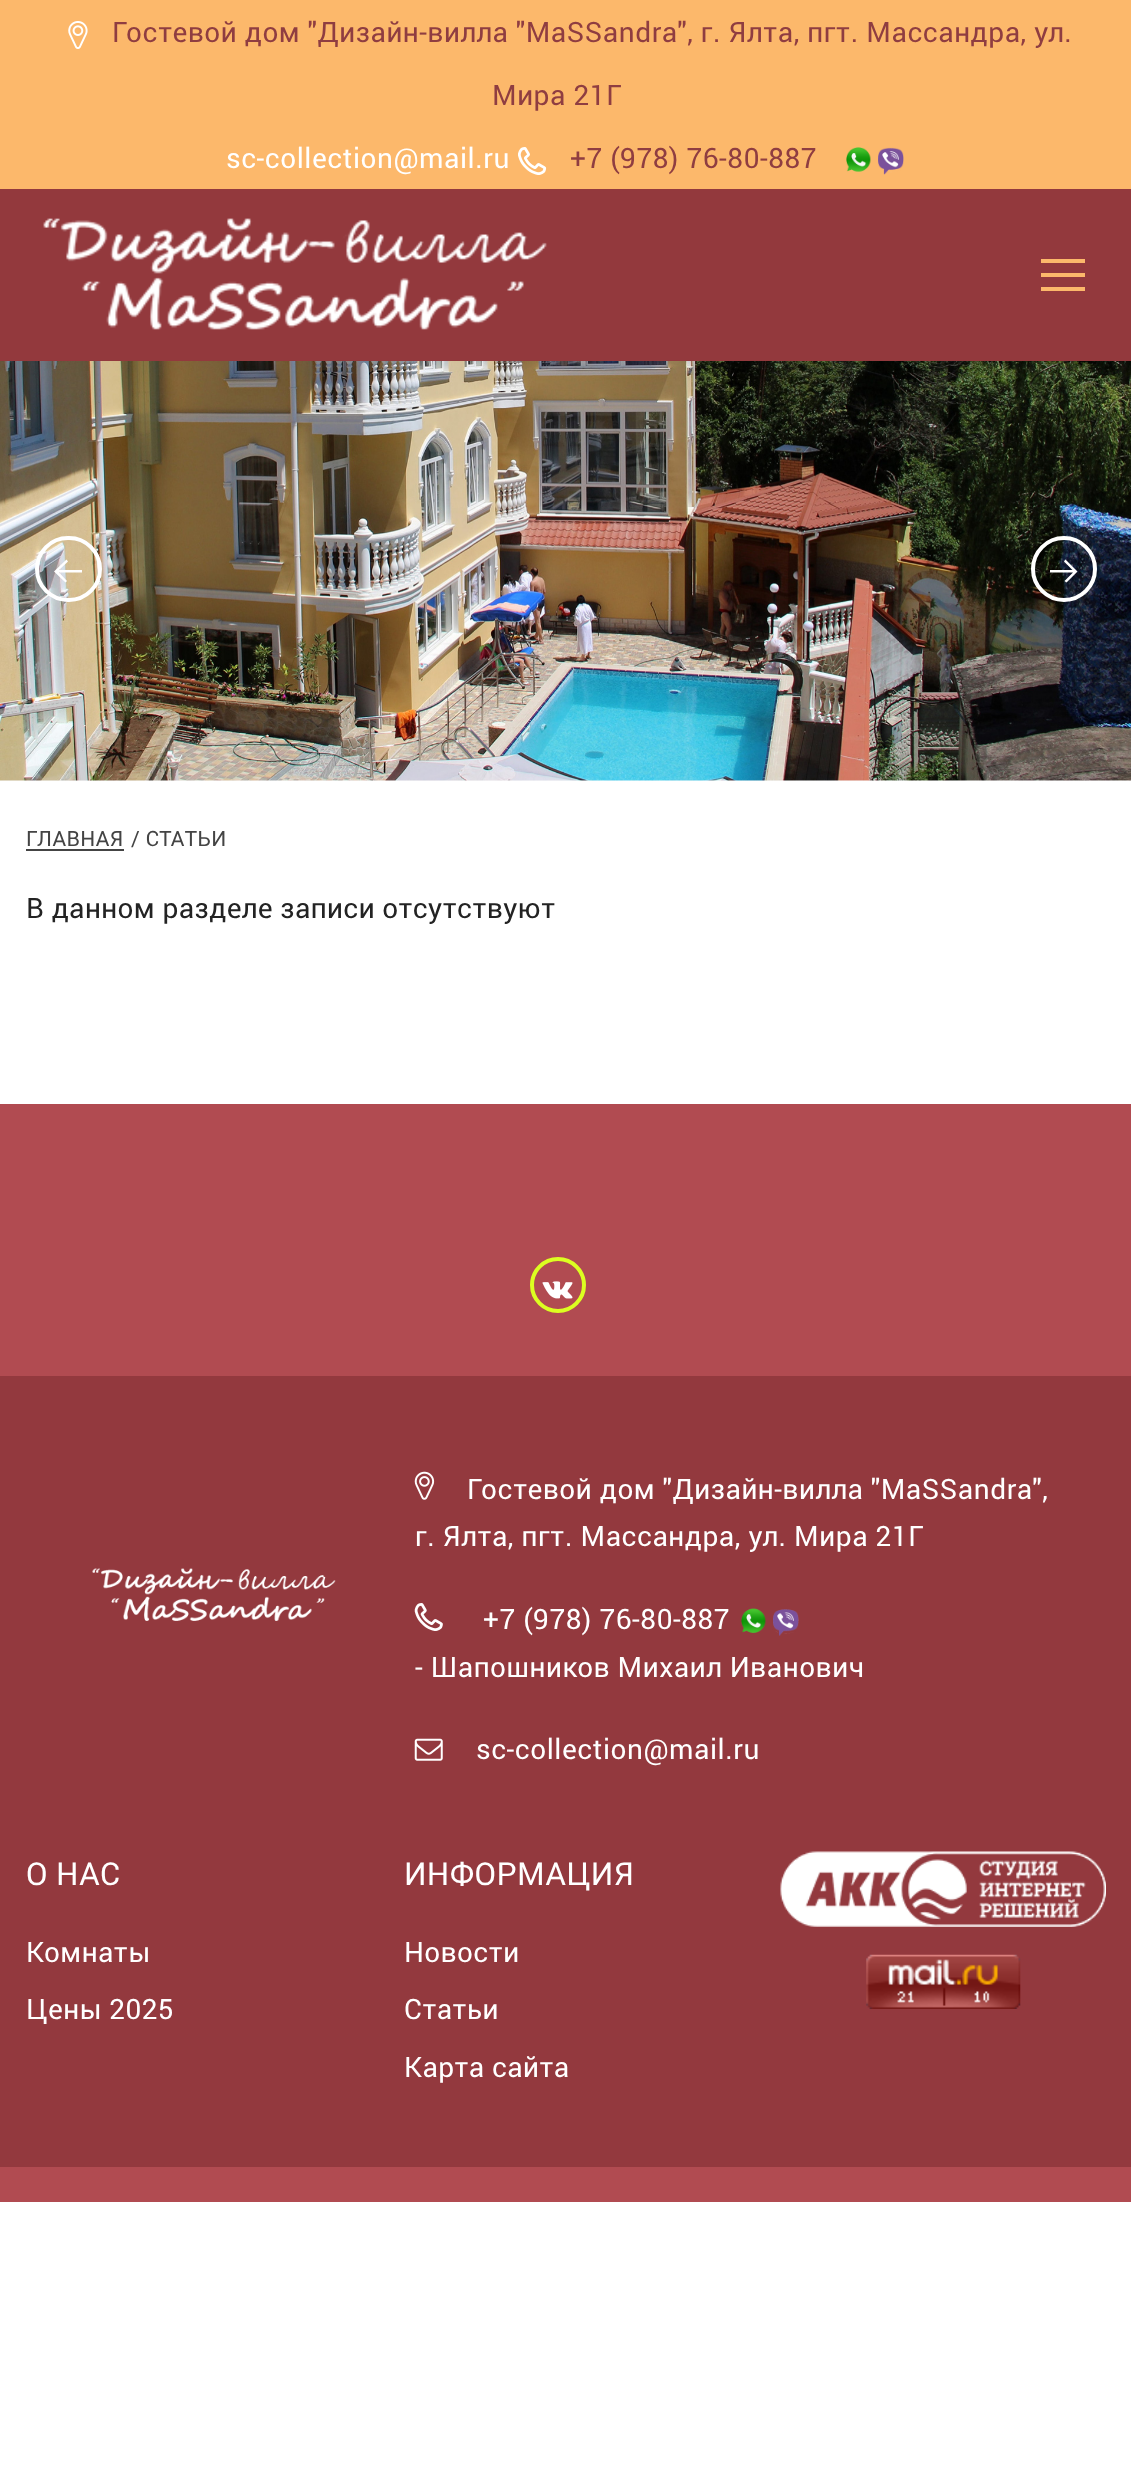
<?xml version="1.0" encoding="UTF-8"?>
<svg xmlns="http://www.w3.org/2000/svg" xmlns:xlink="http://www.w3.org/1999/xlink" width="1131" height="2470">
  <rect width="100%" height="100%" fill="#ffffff" />
  <rect y="780" width="1131" height="1" fill="#f7f7f7" />
  <rect width="1131" height="189" fill="#fcb86b" />
  <image x="68" y="21" width="20" height="28" xlink:href="image1.png" />
  <image x="518" y="147" width="29" height="28" xlink:href="image2.png" />
  <image x="846" y="147" width="58" height="28" xlink:href="image3.png" />
  <rect y="189" width="1131" height="172" fill="#93393d" />
  <image x="43" y="218" width="504" height="112" xlink:href="image4.png" />
  <rect x="1041" y="273" width="44" height="4" fill="#fcb86b" />
  <rect x="1041" y="259" width="44" height="4" fill="#fcb86b" />
  <rect x="1041" y="287" width="44" height="4" fill="#fcb86b" />
  <image x="0" y="361" width="1131" height="420" xlink:href="image5.png" />
  <rect x="37" y="538" width="63" height="62" rx="31" fill="none" stroke="#ffffff" stroke-width="4" />
  <path d="M 59 570 l 9 -8.5 l -1.5 -2 l -12.5 12 l 11.5 11 l 1.5 -1.5 l -8 -8.5 h 23 v -2.5 z" fill="#ffffff" />
  <circle cx="1064" cy="569" r="31" fill="none" stroke="#ffffff" stroke-width="4" />
  <path d="M 1072.5 570 l -8.5 -8.5 l 1.5 -2 l 12 12 l -11 11 l -2 -1.5 l 8.5 -8.5 h -23 v -2.5 z" fill="#ffffff" />
  <rect x="26" y="849" width="98" height="2" fill="#444444" />
  <rect y="1376" width="1131" height="791" fill="#93393e" />
  <rect y="1104" width="1131" height="272" fill="#b14b51" />
  <circle cx="558" cy="1285" r="26" fill="none" stroke="#dcfe21" stroke-width="4" />
  <image x="542" y="1281" width="31" height="18" xlink:href="image6.png" />
  <image x="92" y="1568" width="244" height="53" xlink:href="image7.png" />
  <image x="414" y="1471" width="21" height="29" xlink:href="image8.png" />
  <image x="414" y="1603" width="29" height="28" xlink:href="image9.png" />
  <image x="741" y="1608" width="58" height="28" xlink:href="image10.png" />
  <image x="414" y="1738" width="29" height="23" xlink:href="image11.png" />
  <image x="780" y="1851" width="326" height="76" xlink:href="image12.png" />
  <image x="866" y="1954" width="155" height="55" xlink:href="image13.png" />
  <rect y="2167" width="1131" height="35" fill="#b14b51" />
  <text x="112" y="42" style="font-family: Roboto; font-size: 28px; letter-spacing: 0.55px; fill: #8f3d41">Гостевой дом "Дизайн-вилла "MaSSandra", г. Ялта, пгт. Массандра, ул.</text>
  <text x="492" y="105" style="font-family: Roboto; font-size: 28px; letter-spacing: 0.55px; fill: #8f3d41">Мира 21Г</text>
  <text x="226" y="168" style="font-family: Roboto; font-size: 28px; letter-spacing: 0.55px; fill: #ffffff">sc-collection@mail.ru</text>
  <text x="570" y="168" style="font-family: Roboto; font-size: 28px; letter-spacing: 0.55px; fill: #8f3d41">+7 (978) 76-80-887</text>
  <text x="26" y="846" style="font-family: Roboto; font-size: 21px; letter-spacing: 0.4px; fill: #444444">ГЛАВНАЯ</text>
  <text x="131" y="846" style="font-family: Roboto; font-size: 21px; letter-spacing: 0.4px; fill: #444444">/ СТАТЬИ</text>
  <text x="26" y="918" style="font-family: Roboto; font-size: 28px; letter-spacing: 0.4px; fill: #232323">В данном разделе записи отсутствуют</text>
  <text x="467" y="1499" style="font-family: Roboto; font-size: 28px; letter-spacing: 0.55px; fill: #ffffff">Гостевой дом "Дизайн-вилла "MaSSandra",</text>
  <text x="415" y="1546" style="font-family: Roboto; font-size: 28px; letter-spacing: 0.55px; fill: #ffffff">г. Ялта, пгт. Массандра, ул. Мира 21Г</text>
  <text x="483" y="1629" style="font-family: Roboto; font-size: 28px; letter-spacing: 0.55px; fill: #ffffff">+7 (978) 76-80-887</text>
  <text x="415" y="1677" style="font-family: Roboto; font-size: 28px; letter-spacing: 0.55px; fill: #ffffff">- Шапошников Михаил Иванович</text>
  <text x="476" y="1759" style="font-family: Roboto; font-size: 28px; letter-spacing: 0.55px; fill: #ffffff">sc-collection@mail.ru</text>
  <text x="26" y="1885" style="font-family: Roboto; font-size: 31.5px; letter-spacing: 0.4px; fill: #ffffff">О НАС</text>
  <text x="26" y="1962" style="font-family: Roboto; font-size: 28px; letter-spacing: 0.4px; fill: #ffffff">Комнаты</text>
  <text x="26" y="2019" style="font-family: Roboto; font-size: 28px; letter-spacing: 0.4px; fill: #ffffff">Цены 2025</text>
  <text x="404" y="1885" style="font-family: Roboto; font-size: 31.5px; letter-spacing: 0.4px; fill: #ffffff">ИНФОРМАЦИЯ</text>
  <text x="404" y="1962" style="font-family: Roboto; font-size: 28px; letter-spacing: 0.4px; fill: #ffffff">Новости</text>
  <text x="404" y="2019" style="font-family: Roboto; font-size: 28px; letter-spacing: 0.4px; fill: #ffffff">Статьи</text>
  <text x="404" y="2077" style="font-family: Roboto; font-size: 28px; letter-spacing: 0.4px; fill: #ffffff">Карта сайта</text>
</svg>
